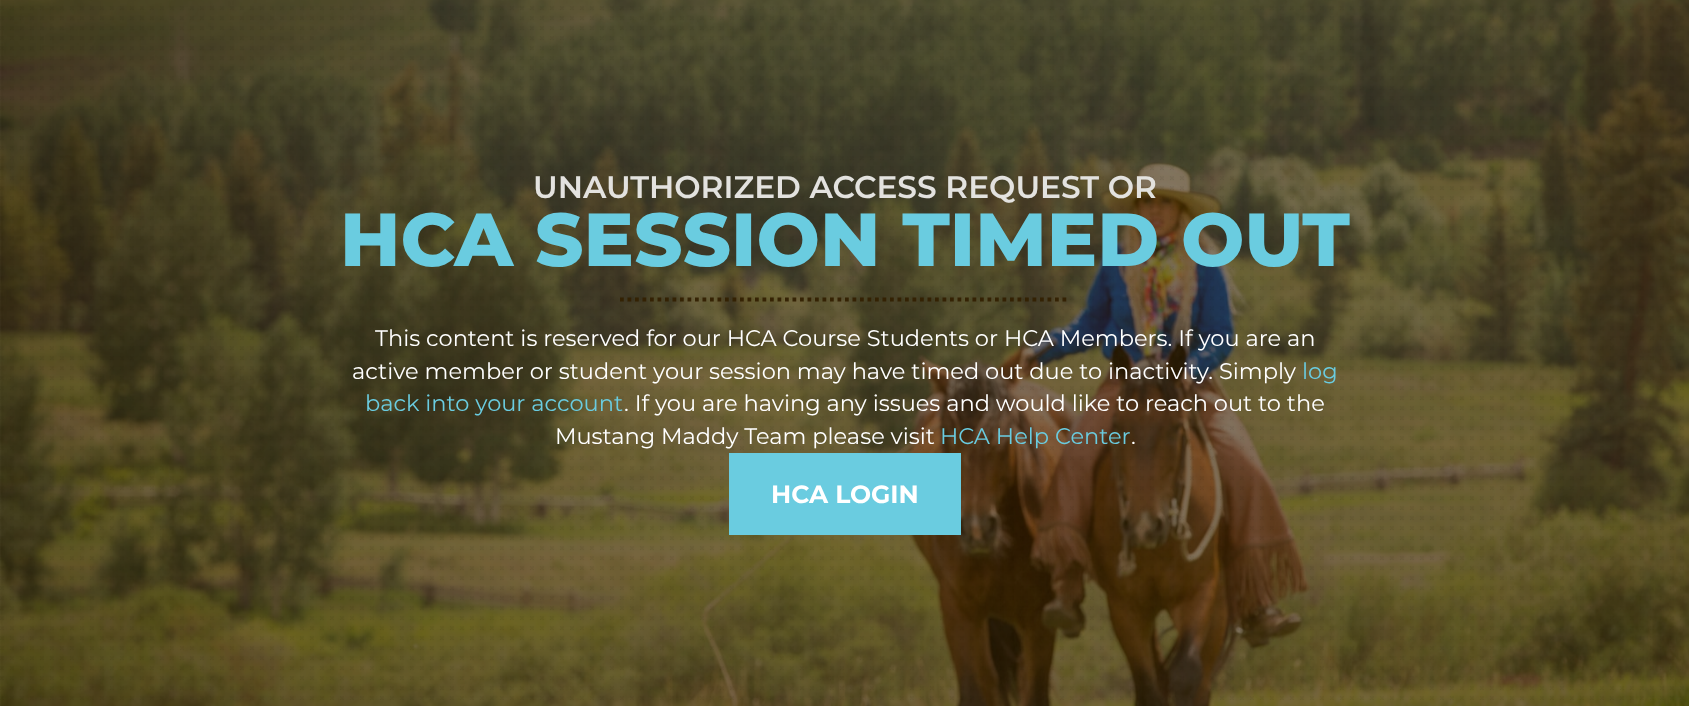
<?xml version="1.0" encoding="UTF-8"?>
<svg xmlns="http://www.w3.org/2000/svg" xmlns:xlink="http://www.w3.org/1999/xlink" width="1689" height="706">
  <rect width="100%" height="100%" fill="#ffffff" />
  <image x="0" y="0" width="1689" height="706" xlink:href="image1.png" />
  <image x="0" y="6" width="1684" height="694" xlink:href="image2.png" />
  <path d="M 620 299.5 h 450" fill="none" stroke="#342102" stroke-opacity="0.95" stroke-width="3.8" stroke-dasharray="3.75 3.75" />
  <rect x="729" y="453" width="232" height="82" fill="#6acce0" />
  <text x="533" y="198" style="font-family: Montserrat; font-size: 31.25px; font-weight: 600; fill: #e3e2df">UNAUTHORIZED ACCESS REQUEST OR</text>
  <text x="340" y="266" style="font-family: Montserrat; font-size: 75px; font-weight: 800; fill: #6acce0">HCA SESSION TIMED OUT</text>
  <text x="375" y="346" style="font-family: Montserrat; font-size: 22.5px; fill: #ffffff">This content is reserved for our HCA Course Students or HCA Members. If you are an</text>
  <text x="352" y="379" style="font-family: Montserrat; font-size: 22.5px; fill: #ffffff">active member or student your session may have timed out due to inactivity. Simply</text>
  <text x="1302" y="379" style="font-family: Montserrat; font-size: 22.5px; fill: #6acce0">log</text>
  <text x="365" y="411" style="font-family: Montserrat; font-size: 22.5px; fill: #6acce0">back into your account</text>
  <text x="624" y="411" style="font-family: Montserrat; font-size: 22.5px; fill: #ffffff">. If you are having any issues and would like to reach out to the</text>
  <text x="555" y="444" style="font-family: Montserrat; font-size: 22.5px; fill: #ffffff">Mustang Maddy Team please visit</text>
  <text x="940" y="444" style="font-family: Montserrat; font-size: 22.5px; fill: #6acce0">HCA Help Center</text>
  <text x="1131" y="444" style="font-family: Montserrat; font-size: 22.5px; fill: #ffffff">.</text>
  <text x="771" y="503" style="font-family: Montserrat; font-size: 25px; font-weight: bold; fill: #ffffff">HCA LOGIN</text>
</svg>
